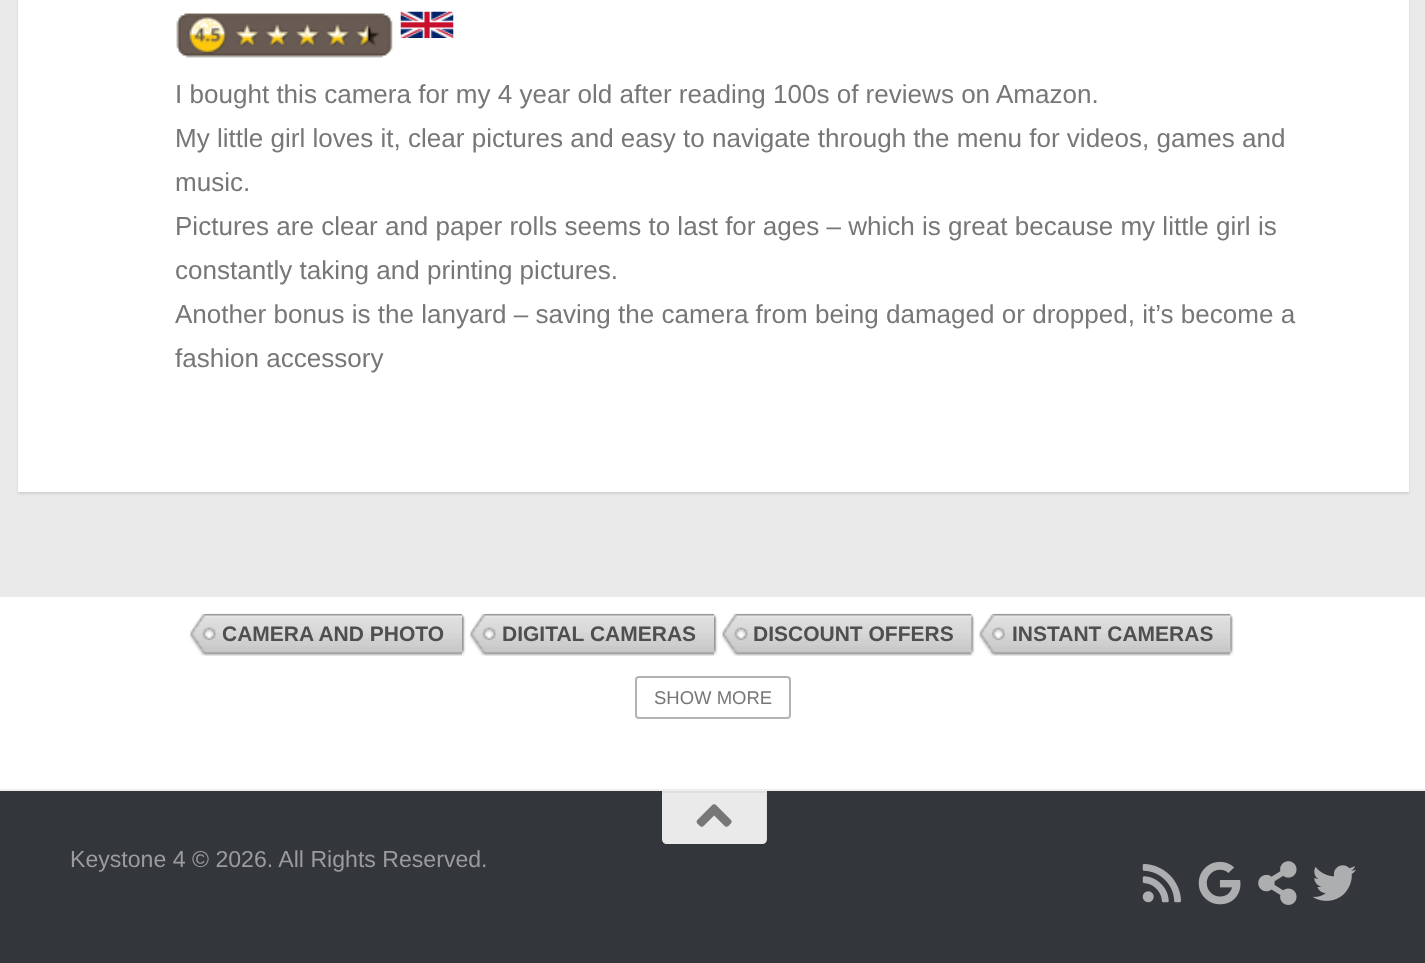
<?xml version="1.0" encoding="UTF-8"?>
<svg xmlns="http://www.w3.org/2000/svg" xmlns:xlink="http://www.w3.org/1999/xlink" width="1425" height="963">
  <rect width="100%" height="100%" fill="#eaeaea" />
  <rect x="18" y="-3" width="1391" height="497" fill="#000000" fill-opacity="0.1" filter="blur(1px)" />
  <rect x="18" width="1391" height="492" fill="#ffffff" />
  <image x="176" y="13" width="217" height="45" xlink:href="image1.png" />
  <image x="400" y="11" width="54" height="27" xlink:href="image2.png" />
  <rect y="597" width="1425" height="192" fill="#ffffff" />
  <rect y="789" width="1425" height="2" fill="#eeeeee" />
  <image x="189" y="613" width="273" height="43" xlink:href="image3.png" />
  <image x="462" y="614" width="4" height="42" xlink:href="image4.png" />
  <image x="469" y="613" width="245" height="43" xlink:href="image5.png" />
  <image x="714" y="614" width="4" height="42" xlink:href="image4.png" />
  <image x="721" y="613" width="251" height="43" xlink:href="image6.png" />
  <image x="971" y="614" width="4" height="42" xlink:href="image7.png" />
  <image x="978" y="613" width="253" height="43" xlink:href="image8.png" />
  <image x="1230" y="614" width="4" height="42" xlink:href="image7.png" />
  <rect x="636" y="677" width="154" height="41" rx="3" fill="none" stroke="#b3b3b3" stroke-width="2" />
  <rect y="791" width="1425" height="172" fill="#33363b" />
  <path d="M 662 791 h 105 v 48 c 0 3 -2 5 -5 5 h -95 c -3 0 -5 -2 -5 -5 z" fill="#eaeaea" />
  <path d="M 662 793 h 104 v 47 l -1 3 c 1 -1 2 -3 2 -4 v -48 h -105 z" fill="#000000" fill-opacity="0.05" />
  <image x="696" y="804" width="36" height="23" xlink:href="image9.png" />
  <image x="1142" y="864" width="39" height="39" xlink:href="image10.png" />
  <image x="1198" y="861" width="43" height="44" xlink:href="image11.png" />
  <image x="1258" y="861" width="39" height="44" xlink:href="image12.png" />
  <image x="1312" y="865" width="44" height="36" xlink:href="image13.png" />
  <text x="175" y="103" style="font-family: Liberation Sans; font-size: 26.05px; fill: #777777">I bought this camera for my 4 year old after reading 100s of reviews on Amazon.</text>
  <text x="175" y="147" style="font-family: Liberation Sans; font-size: 26.05px; fill: #777777">My little girl loves it, clear pictures and easy to navigate through the menu for videos, games and</text>
  <text x="175" y="191" style="font-family: Liberation Sans; font-size: 26.05px; fill: #777777">music.</text>
  <text x="175" y="235" style="font-family: Liberation Sans; font-size: 26.05px; fill: #777777">Pictures are clear and paper rolls seems to last for ages – which is great because my little girl is</text>
  <text x="175" y="279" style="font-family: Liberation Sans; font-size: 26.05px; fill: #777777">constantly taking and printing pictures.</text>
  <text x="175" y="323" style="font-family: Liberation Sans; font-size: 26.05px; fill: #777777">Another bonus is the lanyard – saving the camera from being damaged or dropped, it’s become a</text>
  <text x="175" y="367" style="font-family: Liberation Sans; font-size: 26.05px; fill: #777777">fashion accessory</text>
  <text x="222" y="641" style="font-family: Liberation Sans; font-size: 21px; font-weight: bold; fill: #4f4f4f">CAMERA AND PHOTO</text>
  <text x="502" y="641" style="font-family: Liberation Sans; font-size: 21px; font-weight: bold; fill: #4f4f4f">DIGITAL CAMERAS</text>
  <text x="753" y="641" style="font-family: Liberation Sans; font-size: 21px; font-weight: bold; fill: #4f4f4f">DISCOUNT OFFERS</text>
  <text x="1012" y="641" style="font-family: Liberation Sans; font-size: 21px; font-weight: bold; fill: #4f4f4f">INSTANT CAMERAS</text>
  <text x="654" y="704" style="font-family: Liberation Sans; font-size: 18.5px; fill: #777777">SHOW MORE</text>
  <text x="70" y="867" style="font-family: Liberation Sans; font-size: 23.1px; fill: #999b9d">Keystone 4 © 2026. All Rights Reserved.</text>
</svg>
